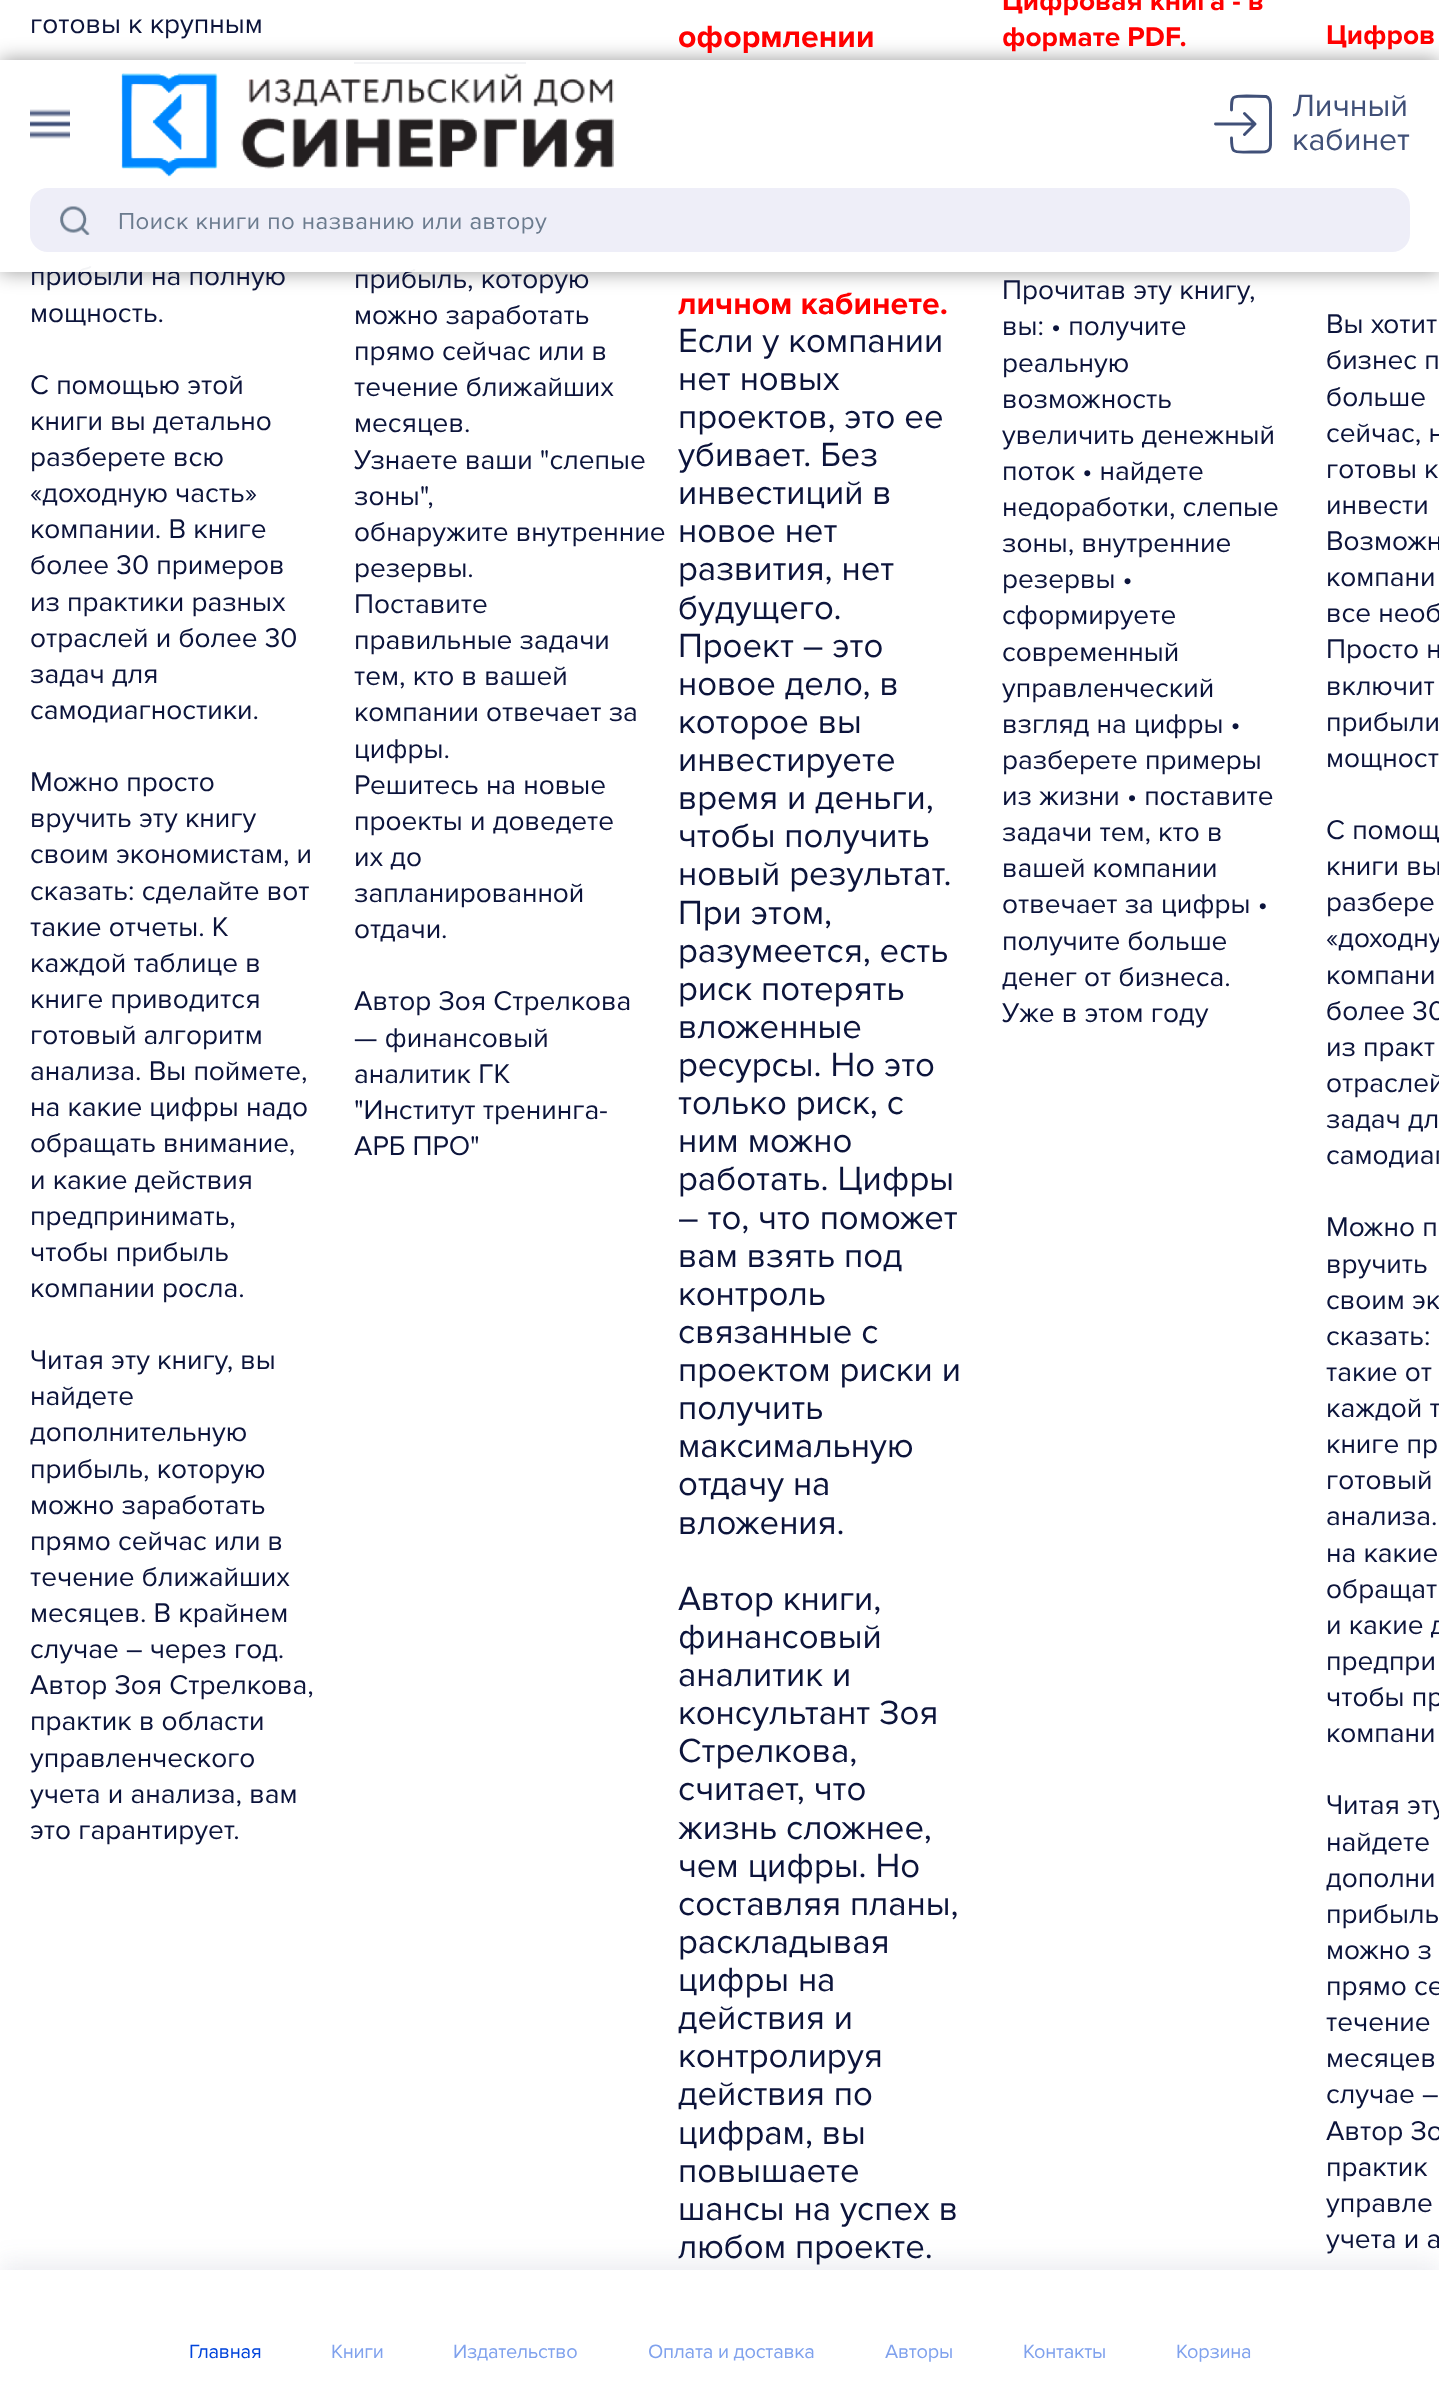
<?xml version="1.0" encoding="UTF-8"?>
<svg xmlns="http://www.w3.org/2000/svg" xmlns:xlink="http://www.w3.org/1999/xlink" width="1439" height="2384">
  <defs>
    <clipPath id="clip1"><path d="M 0 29 h 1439 v 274 h -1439 z m 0 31 h 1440 v 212 h -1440 z" clip-rule="evenodd" /></clipPath>
  </defs>
  <rect width="100%" height="100%" fill="#ffffff" />
  <rect x="354" y="62" width="172" height="2" fill="#0c143b" />
  <g clip-path="url(#clip1)">
    <rect y="60" width="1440" height="212" fill="#000000" fill-opacity="0.4" filter="blur(10px)" />
  </g>
  <path d="M 1231.5 110 c 0 -14 0 -14 15 -14 l 19.5 0.5 c 5.5 1.5 4.5 10 4.5 13.5 v 35 c 0 6.5 -4.5 7 -10 7 h -9.5 c -17.5 0 -19.5 2.5 -19.5 -14 m 13 -3.5 l 10.5 -10.5 l -10.5 -10.5 m -29 10.5 h 37.5" fill="none" stroke="#405078" stroke-width="2.9" stroke-linecap="round" stroke-linejoin="round" />
  <rect y="2262" width="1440" height="114" fill="#405078" fill-opacity="0.1" filter="blur(12px)" />
  <rect y="2270" width="1439" height="114" fill="#ffffff" />
  <text x="30" y="33" style="font-family: Proxima Nova; font-size: 28px; fill: #0c143b">готовы к крупным</text>
  <text x="30" y="285" style="font-family: Proxima Nova; font-size: 28px; fill: #0c143b">прибыли на полную</text>
  <text x="30" y="322" style="font-family: Proxima Nova; font-size: 28px; fill: #0c143b">мощность.</text>
  <text x="30" y="394" style="font-family: Proxima Nova; font-size: 28px; fill: #0c143b">С помощью этой</text>
  <text x="30" y="430" style="font-family: Proxima Nova; font-size: 28px; fill: #0c143b">книги вы детально</text>
  <text x="30" y="466" style="font-family: Proxima Nova; font-size: 28px; fill: #0c143b">разберете всю</text>
  <text x="30" y="502" style="font-family: Proxima Nova; font-size: 28px; fill: #0c143b">«доходную часть»</text>
  <text x="30" y="538" style="font-family: Proxima Nova; font-size: 28px; fill: #0c143b">компании. В книге</text>
  <text x="30" y="574" style="font-family: Proxima Nova; font-size: 28px; fill: #0c143b">более 30 примеров</text>
  <text x="30" y="611" style="font-family: Proxima Nova; font-size: 28px; fill: #0c143b">из практики разных</text>
  <text x="30" y="647" style="font-family: Proxima Nova; font-size: 28px; fill: #0c143b">отраслей и более 30</text>
  <text x="30" y="683" style="font-family: Proxima Nova; font-size: 28px; fill: #0c143b">задач для</text>
  <text x="30" y="719" style="font-family: Proxima Nova; font-size: 28px; fill: #0c143b">самодиагностики.</text>
  <text x="30" y="791" style="font-family: Proxima Nova; font-size: 28px; fill: #0c143b">Можно просто</text>
  <text x="30" y="827" style="font-family: Proxima Nova; font-size: 28px; fill: #0c143b">вручить эту книгу</text>
  <text x="30" y="863" style="font-family: Proxima Nova; font-size: 28px; fill: #0c143b">своим экономистам, и</text>
  <text x="30" y="900" style="font-family: Proxima Nova; font-size: 28px; fill: #0c143b">сказать: сделайте вот</text>
  <text x="30" y="936" style="font-family: Proxima Nova; font-size: 28px; fill: #0c143b">такие отчеты. К</text>
  <text x="30" y="972" style="font-family: Proxima Nova; font-size: 28px; fill: #0c143b">каждой таблице в</text>
  <text x="30" y="1008" style="font-family: Proxima Nova; font-size: 28px; fill: #0c143b">книге приводится</text>
  <text x="30" y="1044" style="font-family: Proxima Nova; font-size: 28px; fill: #0c143b">готовый алгоритм</text>
  <text x="30" y="1080" style="font-family: Proxima Nova; font-size: 28px; fill: #0c143b">анализа. Вы поймете,</text>
  <text x="30" y="1116" style="font-family: Proxima Nova; font-size: 28px; fill: #0c143b">на какие цифры надо</text>
  <text x="30" y="1152" style="font-family: Proxima Nova; font-size: 28px; fill: #0c143b">обращать внимание,</text>
  <text x="30" y="1189" style="font-family: Proxima Nova; font-size: 28px; fill: #0c143b">и какие действия</text>
  <text x="30" y="1225" style="font-family: Proxima Nova; font-size: 28px; fill: #0c143b">предпринимать,</text>
  <text x="30" y="1261" style="font-family: Proxima Nova; font-size: 28px; fill: #0c143b">чтобы прибыль</text>
  <text x="30" y="1297" style="font-family: Proxima Nova; font-size: 28px; fill: #0c143b">компании росла.</text>
  <text x="30" y="1369" style="font-family: Proxima Nova; font-size: 28px; fill: #0c143b">Читая эту книгу, вы</text>
  <text x="30" y="1405" style="font-family: Proxima Nova; font-size: 28px; fill: #0c143b">найдете</text>
  <text x="30" y="1441" style="font-family: Proxima Nova; font-size: 28px; fill: #0c143b">дополнительную</text>
  <text x="30" y="1478" style="font-family: Proxima Nova; font-size: 28px; fill: #0c143b">прибыль, которую</text>
  <text x="30" y="1514" style="font-family: Proxima Nova; font-size: 28px; fill: #0c143b">можно заработать</text>
  <text x="30" y="1550" style="font-family: Proxima Nova; font-size: 28px; fill: #0c143b">прямо сейчас или в</text>
  <text x="30" y="1586" style="font-family: Proxima Nova; font-size: 28px; fill: #0c143b">течение ближайших</text>
  <text x="30" y="1622" style="font-family: Proxima Nova; font-size: 28px; fill: #0c143b">месяцев. В крайнем</text>
  <text x="30" y="1658" style="font-family: Proxima Nova; font-size: 28px; fill: #0c143b">случае – через год.</text>
  <text x="30" y="1694" style="font-family: Proxima Nova; font-size: 28px; fill: #0c143b">Автор Зоя Стрелкова,</text>
  <text x="30" y="1730" style="font-family: Proxima Nova; font-size: 28px; fill: #0c143b">практик в области</text>
  <text x="30" y="1767" style="font-family: Proxima Nova; font-size: 28px; fill: #0c143b">управленческого</text>
  <text x="30" y="1803" style="font-family: Proxima Nova; font-size: 28px; fill: #0c143b">учета и анализа, вам</text>
  <text x="30" y="1839" style="font-family: Proxima Nova; font-size: 28px; fill: #0c143b">это гарантирует.</text>
  <text x="354" y="288" style="font-family: Proxima Nova; font-size: 28px; fill: #0c143b">прибыль, которую</text>
  <text x="354" y="324" style="font-family: Proxima Nova; font-size: 28px; fill: #0c143b">можно заработать</text>
  <text x="354" y="360" style="font-family: Proxima Nova; font-size: 28px; fill: #0c143b">прямо сейчас или в</text>
  <text x="354" y="396" style="font-family: Proxima Nova; font-size: 28px; fill: #0c143b">течение ближайших</text>
  <text x="354" y="432" style="font-family: Proxima Nova; font-size: 28px; fill: #0c143b">месяцев.</text>
  <text x="354" y="469" style="font-family: Proxima Nova; font-size: 28px; fill: #0c143b">Узнаете ваши "слепые</text>
  <text x="354" y="505" style="font-family: Proxima Nova; font-size: 28px; fill: #0c143b">зоны",</text>
  <text x="354" y="541" style="font-family: Proxima Nova; font-size: 28px; fill: #0c143b">обнаружите внутренние</text>
  <text x="354" y="577" style="font-family: Proxima Nova; font-size: 28px; fill: #0c143b">резервы.</text>
  <text x="354" y="613" style="font-family: Proxima Nova; font-size: 28px; fill: #0c143b">Поставите</text>
  <text x="354" y="649" style="font-family: Proxima Nova; font-size: 28px; fill: #0c143b">правильные задачи</text>
  <text x="354" y="685" style="font-family: Proxima Nova; font-size: 28px; fill: #0c143b">тем, кто в вашей</text>
  <text x="354" y="721" style="font-family: Proxima Nova; font-size: 28px; fill: #0c143b">компании отвечает за</text>
  <text x="354" y="758" style="font-family: Proxima Nova; font-size: 28px; fill: #0c143b">цифры.</text>
  <text x="354" y="794" style="font-family: Proxima Nova; font-size: 28px; fill: #0c143b">Решитесь на новые</text>
  <text x="354" y="830" style="font-family: Proxima Nova; font-size: 28px; fill: #0c143b">проекты и доведете</text>
  <text x="354" y="866" style="font-family: Proxima Nova; font-size: 28px; fill: #0c143b">их до</text>
  <text x="354" y="902" style="font-family: Proxima Nova; font-size: 28px; fill: #0c143b">запланированной</text>
  <text x="354" y="938" style="font-family: Proxima Nova; font-size: 28px; fill: #0c143b">отдачи.</text>
  <text x="354" y="1010" style="font-family: Proxima Nova; font-size: 28px; fill: #0c143b">Автор Зоя Стрелкова</text>
  <text x="354" y="1047" style="font-family: Proxima Nova; font-size: 28px; fill: #0c143b">— финансовый</text>
  <text x="354" y="1083" style="font-family: Proxima Nova; font-size: 28px; fill: #0c143b">аналитик ГК</text>
  <text x="354" y="1119" style="font-family: Proxima Nova; font-size: 28px; fill: #0c143b">"Институт тренинга-</text>
  <text x="354" y="1155" style="font-family: Proxima Nova; font-size: 28px; fill: #0c143b">АРБ ПРО"</text>
  <text x="678" y="47" style="font-family: Proxima Nova; font-size: 32px; font-weight: bold; fill: #ff0000">оформлении</text>
  <text x="678" y="314" style="font-family: Proxima Nova; font-size: 32px; font-weight: bold; fill: #ff0000">личном кабинете.</text>
  <text x="678" y="352" style="font-family: Proxima Nova; font-size: 34.75px; fill: #0c143b">Если у компании</text>
  <text x="678" y="390" style="font-family: Proxima Nova; font-size: 34.75px; fill: #0c143b">нет новых</text>
  <text x="678" y="428" style="font-family: Proxima Nova; font-size: 34.75px; fill: #0c143b">проектов, это ее</text>
  <text x="678" y="466" style="font-family: Proxima Nova; font-size: 34.75px; fill: #0c143b">убивает. Без</text>
  <text x="678" y="504" style="font-family: Proxima Nova; font-size: 34.75px; fill: #0c143b">инвестиций в</text>
  <text x="678" y="542" style="font-family: Proxima Nova; font-size: 34.75px; fill: #0c143b">новое нет</text>
  <text x="678" y="580" style="font-family: Proxima Nova; font-size: 34.75px; fill: #0c143b">развития, нет</text>
  <text x="678" y="619" style="font-family: Proxima Nova; font-size: 34.75px; fill: #0c143b">будущего.</text>
  <text x="678" y="657" style="font-family: Proxima Nova; font-size: 34.75px; fill: #0c143b">Проект – это</text>
  <text x="678" y="695" style="font-family: Proxima Nova; font-size: 34.75px; fill: #0c143b">новое дело, в</text>
  <text x="678" y="733" style="font-family: Proxima Nova; font-size: 34.75px; fill: #0c143b">которое вы</text>
  <text x="678" y="771" style="font-family: Proxima Nova; font-size: 34.75px; fill: #0c143b">инвестируете</text>
  <text x="678" y="809" style="font-family: Proxima Nova; font-size: 34.75px; fill: #0c143b">время и деньги,</text>
  <text x="678" y="847" style="font-family: Proxima Nova; font-size: 34.75px; fill: #0c143b">чтобы получить</text>
  <text x="678" y="885" style="font-family: Proxima Nova; font-size: 34.75px; fill: #0c143b">новый результат.</text>
  <text x="678" y="924" style="font-family: Proxima Nova; font-size: 34.75px; fill: #0c143b">При этом,</text>
  <text x="678" y="962" style="font-family: Proxima Nova; font-size: 34.75px; fill: #0c143b">разумеется, есть</text>
  <text x="678" y="1000" style="font-family: Proxima Nova; font-size: 34.75px; fill: #0c143b">риск потерять</text>
  <text x="678" y="1038" style="font-family: Proxima Nova; font-size: 34.75px; fill: #0c143b">вложенные</text>
  <text x="678" y="1076" style="font-family: Proxima Nova; font-size: 34.75px; fill: #0c143b">ресурсы. Но это</text>
  <text x="678" y="1114" style="font-family: Proxima Nova; font-size: 34.75px; fill: #0c143b">только риск, с</text>
  <text x="678" y="1152" style="font-family: Proxima Nova; font-size: 34.75px; fill: #0c143b">ним можно</text>
  <text x="678" y="1190" style="font-family: Proxima Nova; font-size: 34.75px; fill: #0c143b">работать. Цифры</text>
  <text x="678" y="1229" style="font-family: Proxima Nova; font-size: 34.75px; fill: #0c143b">– то, что поможет</text>
  <text x="678" y="1267" style="font-family: Proxima Nova; font-size: 34.75px; fill: #0c143b">вам взять под</text>
  <text x="678" y="1305" style="font-family: Proxima Nova; font-size: 34.75px; fill: #0c143b">контроль</text>
  <text x="678" y="1343" style="font-family: Proxima Nova; font-size: 34.75px; fill: #0c143b">связанные с</text>
  <text x="678" y="1381" style="font-family: Proxima Nova; font-size: 34.75px; fill: #0c143b">проектом риски и</text>
  <text x="678" y="1419" style="font-family: Proxima Nova; font-size: 34.75px; fill: #0c143b">получить</text>
  <text x="678" y="1457" style="font-family: Proxima Nova; font-size: 34.75px; fill: #0c143b">максимальную</text>
  <text x="678" y="1495" style="font-family: Proxima Nova; font-size: 34.75px; fill: #0c143b">отдачу на</text>
  <text x="678" y="1534" style="font-family: Proxima Nova; font-size: 34.75px; fill: #0c143b">вложения.</text>
  <text x="678" y="1610" style="font-family: Proxima Nova; font-size: 34.75px; fill: #0c143b">Автор книги,</text>
  <text x="678" y="1648" style="font-family: Proxima Nova; font-size: 34.75px; fill: #0c143b">финансовый</text>
  <text x="678" y="1686" style="font-family: Proxima Nova; font-size: 34.75px; fill: #0c143b">аналитик и</text>
  <text x="678" y="1724" style="font-family: Proxima Nova; font-size: 34.75px; fill: #0c143b">консультант Зоя</text>
  <text x="678" y="1762" style="font-family: Proxima Nova; font-size: 34.75px; fill: #0c143b">Стрелкова,</text>
  <text x="678" y="1800" style="font-family: Proxima Nova; font-size: 34.75px; fill: #0c143b">считает, что</text>
  <text x="678" y="1839" style="font-family: Proxima Nova; font-size: 34.75px; fill: #0c143b">жизнь сложнее,</text>
  <text x="678" y="1877" style="font-family: Proxima Nova; font-size: 34.75px; fill: #0c143b">чем цифры. Но</text>
  <text x="678" y="1915" style="font-family: Proxima Nova; font-size: 34.75px; fill: #0c143b">составляя планы,</text>
  <text x="678" y="1953" style="font-family: Proxima Nova; font-size: 34.75px; fill: #0c143b">раскладывая</text>
  <text x="678" y="1991" style="font-family: Proxima Nova; font-size: 34.75px; fill: #0c143b">цифры на</text>
  <text x="678" y="2029" style="font-family: Proxima Nova; font-size: 34.75px; fill: #0c143b">действия и</text>
  <text x="678" y="2067" style="font-family: Proxima Nova; font-size: 34.75px; fill: #0c143b">контролируя</text>
  <text x="678" y="2105" style="font-family: Proxima Nova; font-size: 34.75px; fill: #0c143b">действия по</text>
  <text x="678" y="2144" style="font-family: Proxima Nova; font-size: 34.75px; fill: #0c143b">цифрам, вы</text>
  <text x="678" y="2182" style="font-family: Proxima Nova; font-size: 34.75px; fill: #0c143b">повышаете</text>
  <text x="678" y="2220" style="font-family: Proxima Nova; font-size: 34.75px; fill: #0c143b">шансы на успех в</text>
  <text x="678" y="2258" style="font-family: Proxima Nova; font-size: 34.75px; fill: #0c143b">любом проекте.</text>
  <text x="1002" y="10" style="font-family: Proxima Nova; font-size: 28px; font-weight: bold; fill: #ff0000">Цифровая книга - в</text>
  <text x="1002" y="46" style="font-family: Proxima Nova; font-size: 28px; font-weight: bold; fill: #ff0000">формате PDF.</text>
  <text x="1002" y="299" style="font-family: Proxima Nova; font-size: 28px; fill: #0c143b">Прочитав эту книгу,</text>
  <text x="1002" y="335" style="font-family: Proxima Nova; font-size: 28px; fill: #0c143b">вы: • получите</text>
  <text x="1002" y="372" style="font-family: Proxima Nova; font-size: 28px; fill: #0c143b">реальную</text>
  <text x="1002" y="408" style="font-family: Proxima Nova; font-size: 28px; fill: #0c143b">возможность</text>
  <text x="1002" y="444" style="font-family: Proxima Nova; font-size: 28px; fill: #0c143b">увеличить денежный</text>
  <text x="1002" y="480" style="font-family: Proxima Nova; font-size: 28px; fill: #0c143b">поток • найдете</text>
  <text x="1002" y="516" style="font-family: Proxima Nova; font-size: 28px; fill: #0c143b">недоработки, слепые</text>
  <text x="1002" y="552" style="font-family: Proxima Nova; font-size: 28px; fill: #0c143b">зоны, внутренние</text>
  <text x="1002" y="588" style="font-family: Proxima Nova; font-size: 28px; fill: #0c143b">резервы •</text>
  <text x="1002" y="624" style="font-family: Proxima Nova; font-size: 28px; fill: #0c143b">сформируете</text>
  <text x="1002" y="661" style="font-family: Proxima Nova; font-size: 28px; fill: #0c143b">современный</text>
  <text x="1002" y="697" style="font-family: Proxima Nova; font-size: 28px; fill: #0c143b">управленческий</text>
  <text x="1002" y="733" style="font-family: Proxima Nova; font-size: 28px; fill: #0c143b">взгляд на цифры •</text>
  <text x="1002" y="769" style="font-family: Proxima Nova; font-size: 28px; fill: #0c143b">разберете примеры</text>
  <text x="1002" y="805" style="font-family: Proxima Nova; font-size: 28px; fill: #0c143b">из жизни • поставите</text>
  <text x="1002" y="841" style="font-family: Proxima Nova; font-size: 28px; fill: #0c143b">задачи тем, кто в</text>
  <text x="1002" y="877" style="font-family: Proxima Nova; font-size: 28px; fill: #0c143b">вашей компании</text>
  <text x="1002" y="913" style="font-family: Proxima Nova; font-size: 28px; fill: #0c143b">отвечает за цифры •</text>
  <text x="1002" y="950" style="font-family: Proxima Nova; font-size: 28px; fill: #0c143b">получите больше</text>
  <text x="1002" y="986" style="font-family: Proxima Nova; font-size: 28px; fill: #0c143b">денег от бизнеса.</text>
  <text x="1002" y="1022" style="font-family: Proxima Nova; font-size: 28px; fill: #0c143b">Уже в этом году</text>
  <text x="1326" y="44" style="font-family: Proxima Nova; font-size: 28px; font-weight: bold; fill: #ff0000">Цифров</text>
  <text x="1326" y="333" style="font-family: Proxima Nova; font-size: 28px; fill: #0c143b">Вы хотит</text>
  <text x="1326" y="369" style="font-family: Proxima Nova; font-size: 28px; fill: #0c143b">бизнес п</text>
  <text x="1326" y="406" style="font-family: Proxima Nova; font-size: 28px; fill: #0c143b">больше</text>
  <text x="1326" y="442" style="font-family: Proxima Nova; font-size: 28px; fill: #0c143b">сейчас, н</text>
  <text x="1326" y="478" style="font-family: Proxima Nova; font-size: 28px; fill: #0c143b">готовы к</text>
  <text x="1326" y="514" style="font-family: Proxima Nova; font-size: 28px; fill: #0c143b">инвести</text>
  <text x="1326" y="550" style="font-family: Proxima Nova; font-size: 28px; fill: #0c143b">Возможн</text>
  <text x="1326" y="586" style="font-family: Proxima Nova; font-size: 28px; fill: #0c143b">компани</text>
  <text x="1326" y="622" style="font-family: Proxima Nova; font-size: 28px; fill: #0c143b">все необ</text>
  <text x="1326" y="658" style="font-family: Proxima Nova; font-size: 28px; fill: #0c143b">Просто н</text>
  <text x="1326" y="695" style="font-family: Proxima Nova; font-size: 28px; fill: #0c143b">включит</text>
  <text x="1326" y="731" style="font-family: Proxima Nova; font-size: 28px; fill: #0c143b">прибыли</text>
  <text x="1326" y="767" style="font-family: Proxima Nova; font-size: 28px; fill: #0c143b">мощност</text>
  <text x="1326" y="839" style="font-family: Proxima Nova; font-size: 28px; fill: #0c143b">С помощ</text>
  <text x="1326" y="875" style="font-family: Proxima Nova; font-size: 28px; fill: #0c143b">книги вы</text>
  <text x="1326" y="911" style="font-family: Proxima Nova; font-size: 28px; fill: #0c143b">разбере</text>
  <text x="1326" y="947" style="font-family: Proxima Nova; font-size: 28px; fill: #0c143b">«доходну</text>
  <text x="1326" y="984" style="font-family: Proxima Nova; font-size: 28px; fill: #0c143b">компани</text>
  <text x="1326" y="1020" style="font-family: Proxima Nova; font-size: 28px; fill: #0c143b">более 30</text>
  <text x="1326" y="1056" style="font-family: Proxima Nova; font-size: 28px; fill: #0c143b">из практ</text>
  <text x="1326" y="1092" style="font-family: Proxima Nova; font-size: 28px; fill: #0c143b">отраслей</text>
  <text x="1326" y="1128" style="font-family: Proxima Nova; font-size: 28px; fill: #0c143b">задач дл</text>
  <text x="1326" y="1164" style="font-family: Proxima Nova; font-size: 28px; fill: #0c143b">самодиаг</text>
  <text x="1326" y="1236" style="font-family: Proxima Nova; font-size: 28px; fill: #0c143b">Можно п</text>
  <text x="1326" y="1273" style="font-family: Proxima Nova; font-size: 28px; fill: #0c143b">вручить</text>
  <text x="1326" y="1309" style="font-family: Proxima Nova; font-size: 28px; fill: #0c143b">своим эк</text>
  <text x="1326" y="1345" style="font-family: Proxima Nova; font-size: 28px; fill: #0c143b">сказать:</text>
  <text x="1326" y="1381" style="font-family: Proxima Nova; font-size: 28px; fill: #0c143b">такие от</text>
  <text x="1326" y="1417" style="font-family: Proxima Nova; font-size: 28px; fill: #0c143b">каждой т</text>
  <text x="1326" y="1453" style="font-family: Proxima Nova; font-size: 28px; fill: #0c143b">книге пр</text>
  <text x="1326" y="1489" style="font-family: Proxima Nova; font-size: 28px; fill: #0c143b">готовый</text>
  <text x="1326" y="1525" style="font-family: Proxima Nova; font-size: 28px; fill: #0c143b">анализа.</text>
  <text x="1326" y="1562" style="font-family: Proxima Nova; font-size: 28px; fill: #0c143b">на какие</text>
  <text x="1326" y="1598" style="font-family: Proxima Nova; font-size: 28px; fill: #0c143b">обращат</text>
  <text x="1326" y="1634" style="font-family: Proxima Nova; font-size: 28px; fill: #0c143b">и какие д</text>
  <text x="1326" y="1670" style="font-family: Proxima Nova; font-size: 28px; fill: #0c143b">предпри</text>
  <text x="1326" y="1706" style="font-family: Proxima Nova; font-size: 28px; fill: #0c143b">чтобы пр</text>
  <text x="1326" y="1742" style="font-family: Proxima Nova; font-size: 28px; fill: #0c143b">компани</text>
  <text x="1326" y="1814" style="font-family: Proxima Nova; font-size: 28px; fill: #0c143b">Читая эту</text>
  <text x="1326" y="1851" style="font-family: Proxima Nova; font-size: 28px; fill: #0c143b">найдете</text>
  <text x="1326" y="1887" style="font-family: Proxima Nova; font-size: 28px; fill: #0c143b">дополни</text>
  <text x="1326" y="1923" style="font-family: Proxima Nova; font-size: 28px; fill: #0c143b">прибыль</text>
  <text x="1326" y="1959" style="font-family: Proxima Nova; font-size: 28px; fill: #0c143b">можно з</text>
  <text x="1326" y="1995" style="font-family: Proxima Nova; font-size: 28px; fill: #0c143b">прямо се</text>
  <text x="1326" y="2031" style="font-family: Proxima Nova; font-size: 28px; fill: #0c143b">течение</text>
  <text x="1326" y="2067" style="font-family: Proxima Nova; font-size: 28px; fill: #0c143b">месяцев</text>
  <text x="1326" y="2103" style="font-family: Proxima Nova; font-size: 28px; fill: #0c143b">случае –</text>
  <text x="1326" y="2140" style="font-family: Proxima Nova; font-size: 28px; fill: #0c143b">Автор Зо</text>
  <text x="1326" y="2176" style="font-family: Proxima Nova; font-size: 28px; fill: #0c143b">практик</text>
  <text x="1326" y="2212" style="font-family: Proxima Nova; font-size: 28px; fill: #0c143b">управле</text>
  <text x="1326" y="2248" style="font-family: Proxima Nova; font-size: 28px; fill: #0c143b">учета и а</text>
  <rect x="32" y="62" width="494" height="210" fill="#ffffff" fill-opacity="0.95" />
  <image x="30" y="109" width="40" height="30" xlink:href="image1.png" />
  <image x="121" y="73" width="493" height="104" xlink:href="image2.png" />
  <text x="1292" y="116" style="font-family: Proxima Nova; font-size: 32px; fill: #405078">Личный</text>
  <text x="1292" y="150" style="font-family: Proxima Nova; font-size: 32px; fill: #405078">кабинет</text>
  <rect x="30" y="188" width="1380" height="64" rx="18" fill="#eeeef8" />
  <image x="60" y="206" width="30" height="29" xlink:href="image3.png" />
  <text x="118" y="229" style="font-family: Proxima Nova; font-size: 24px; letter-spacing: 0.5px; fill: #6b7b8e">Поиск книги по названию или автору</text>
  <text x="189" y="2358" style="font-family: Proxima Nova; font-size: 20px; letter-spacing: -0.25px; fill: #0044db">Главная</text>
  <text x="331" y="2358" style="font-family: Proxima Nova; font-size: 20px; letter-spacing: -0.25px; fill: #80a2ed">Книги</text>
  <text x="453" y="2358" style="font-family: Proxima Nova; font-size: 20px; letter-spacing: -0.25px; fill: #80a2ed">Издательство</text>
  <text x="648" y="2358" style="font-family: Proxima Nova; font-size: 20px; letter-spacing: -0.25px; fill: #80a2ed">Оплата и доставка</text>
  <text x="885" y="2358" style="font-family: Proxima Nova; font-size: 20px; letter-spacing: -0.25px; fill: #80a2ed">Авторы</text>
  <text x="1023" y="2358" style="font-family: Proxima Nova; font-size: 20px; letter-spacing: -0.25px; fill: #80a2ed">Контакты</text>
  <text x="1176" y="2358" style="font-family: Proxima Nova; font-size: 20px; letter-spacing: -0.25px; fill: #80a2ed">Корзина</text>
</svg>
